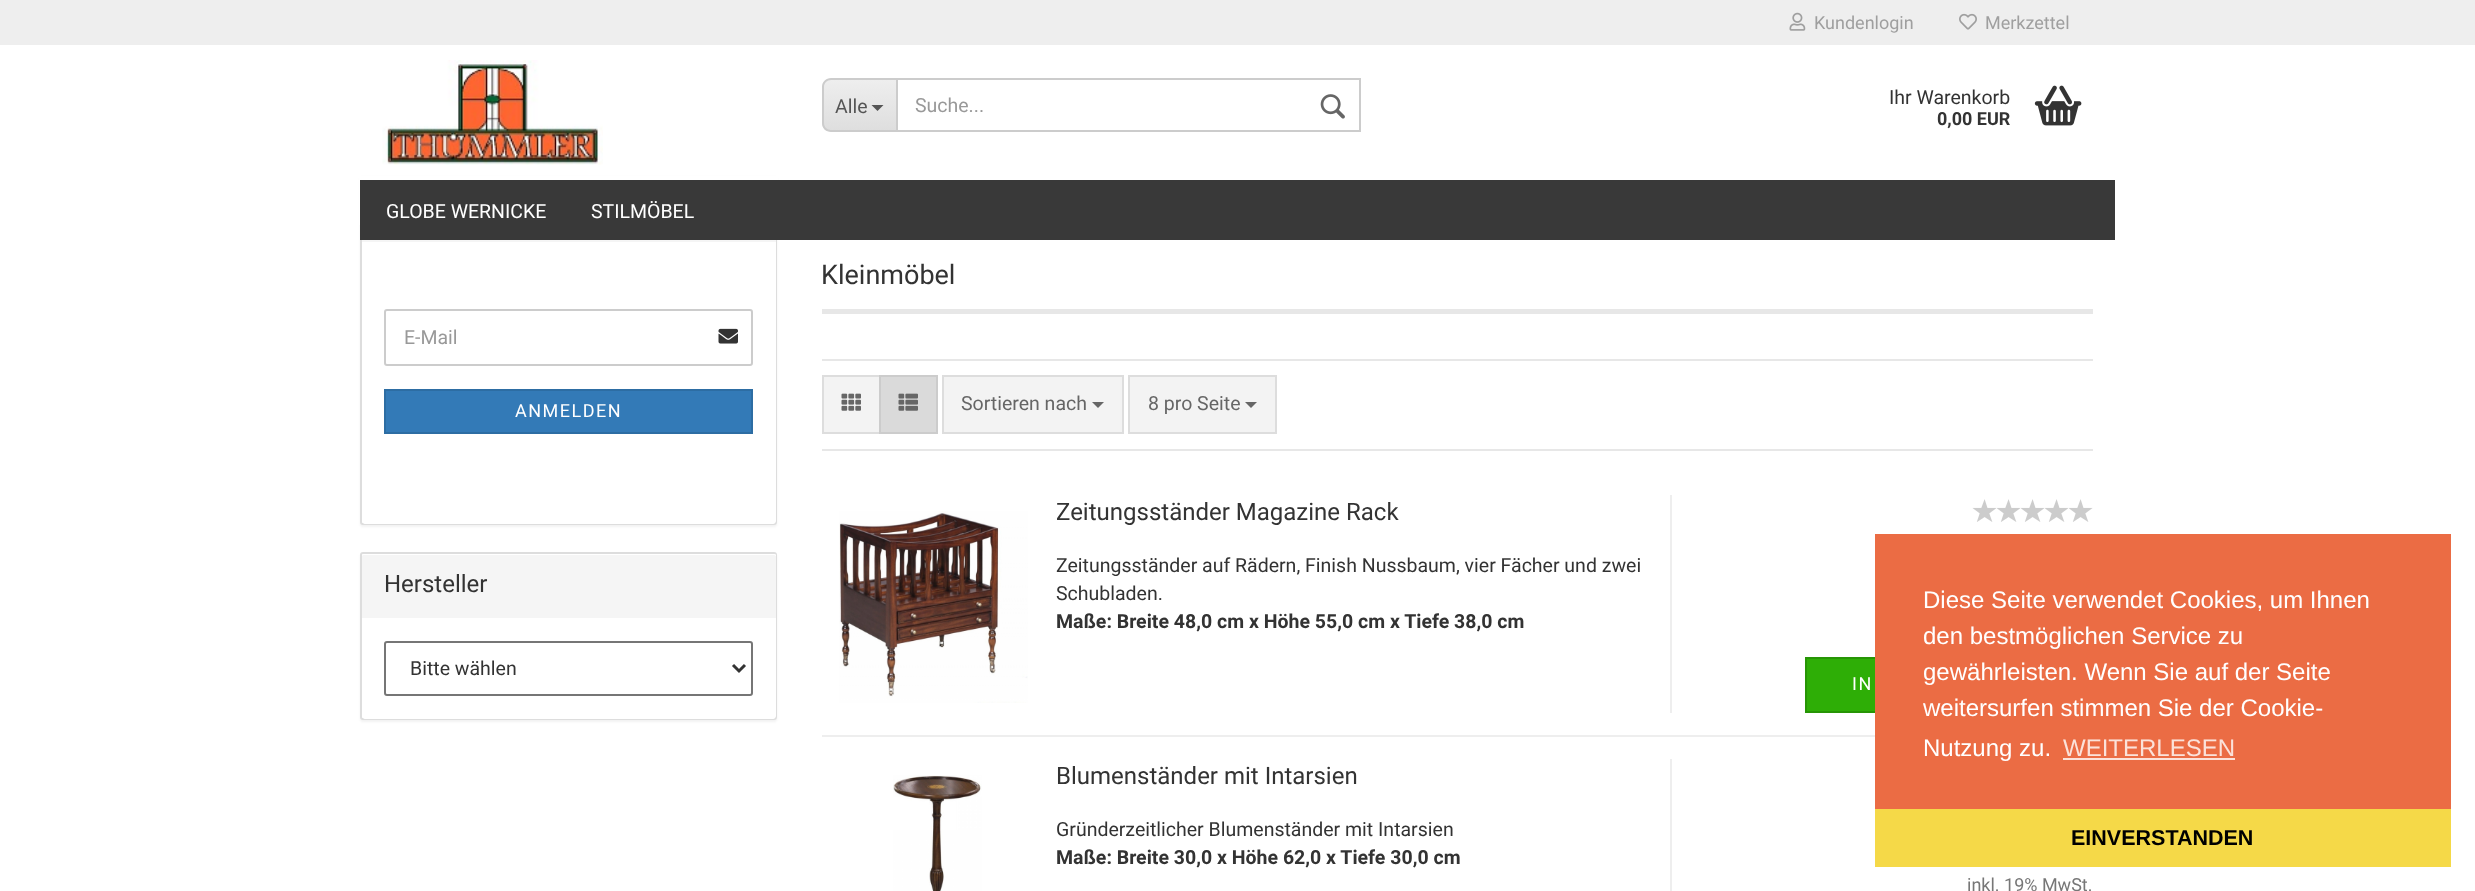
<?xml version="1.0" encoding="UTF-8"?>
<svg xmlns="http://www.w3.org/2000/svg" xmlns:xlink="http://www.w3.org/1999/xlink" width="2475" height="891">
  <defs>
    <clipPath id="clip1"><path d="M 831 78 h 65 v 54 h -65 c -5 0 -9 -4 -9 -9 v -36 c 0 -5 4 -9 9 -9 z" /></clipPath>
    <linearGradient id="g1" gradientUnits="userSpaceOnUse" x1="860" y1="80" x2="860" y2="131"><stop offset="0" stop-color="#eeeeee" /><stop offset="1" stop-color="#dedede" /></linearGradient>
  </defs>
  <rect width="100%" height="100%" fill="#ffffff" />
  <rect x="360" y="177" width="417" height="350" rx="3" fill="#000000" fill-opacity="0.05" filter="blur(1px)" />
  <rect x="361" y="177" width="415" height="347" rx="2" fill="#ffffff" stroke="#dddddd" stroke-width="2" />
  <rect x="359" y="176" width="419" height="49" fill="#ffffff" />
  <rect width="2475" height="45" fill="#eeeeee" />
  <image x="1789" y="12" width="17" height="19" xlink:href="image1.png" />
  <image x="1959" y="13" width="18" height="17" xlink:href="image2.png" />
  <image x="382" y="60" width="221" height="105" xlink:href="image3.png" />
  <g clip-path="url(#clip1)">
    <rect x="822" y="80" width="74" height="51" fill="url(#g1)" />
  </g>
  <path d="M 831 78 h 65 v 54 h -65 c -5 0 -9 -4 -9 -9 v -36 c 0 -5 4 -9 9 -9 z m 0 2 h 65 v 50 h -65 c -4 0 -7 -3 -7 -7 v -36 c 0 -4 3 -7 7 -7 z" fill="#cccccc" fill-rule="evenodd" />
  <path d="M 871.5 105 h 12 l -6 6 z" fill="#555555" />
  <rect x="897" y="79" width="463" height="52" fill="none" stroke="#cccccc" stroke-width="2" />
  <image x="1320" y="94" width="25" height="25" xlink:href="image4.png" />
  <image x="2034" y="85" width="48" height="41" xlink:href="image5.png" />
  <rect x="360" y="180" width="1755" height="60" fill="#393939" />
  <rect x="362" y="240" width="414" height="2" fill="#f5f5f5" />
  <path d="M 362 242 h 414 v 279 c 0 1.5 -1.5 3 -3 3 h -408 c -1.5 0 -3 -1.5 -3 -3 z" fill="#ffffff" />
  <rect x="385" y="310" width="367" height="55" rx="2" fill="none" stroke="#cccccc" stroke-width="2" />
  <image x="718" y="328" width="20" height="16" xlink:href="image6.png" />
  <rect x="385" y="390" width="367" height="43" fill="#337ab7" stroke="#2d6da3" stroke-width="2" />
  <rect x="360" y="554" width="417" height="168" rx="3" fill="#000000" fill-opacity="0.05" filter="blur(1px)" />
  <rect x="361" y="553" width="415" height="166" rx="2" fill="#ffffff" stroke="#dddddd" stroke-width="2" />
  <path d="M 363.5 554 h 411 c 1 0 1.5 0.5 1.5 1.5 v 62.5 h -414 v -62.5 c 0 -1 0.5 -1.5 1.5 -1.5 z" fill="#f5f5f5" />
  <path d="M 363 555 h 411 l 2 1 c 0 -1 0 -2 -2 -2 h -410 c -2 0 -2 1 -2 2 z" fill="#ffffff" />
  <path d="M 362 618 h 414 v 98 c 0 1.5 -1.5 3 -3 3 h -408 c -1.5 0 -3 -1.5 -3 -3 z" fill="#ffffff" />
  <rect x="385" y="642" width="367" height="53" rx="2" fill="none" stroke="#767676" stroke-width="2" />
  <path d="M 733 665 l 6 6 l 6 -6" fill="none" stroke="#333333" stroke-width="3" />
  <rect x="822" y="309" width="1271" height="5" fill="#e7e7e7" />
  <rect x="822" y="359" width="1271" height="2" fill="#e7e7e7" />
  <rect x="822" y="449" width="1271" height="2" fill="#e7e7e7" />
  <rect x="823" y="376" width="57" height="57" fill="#f3f3f3" stroke="#dddddd" stroke-width="2" />
  <image x="841" y="393" width="20" height="18" xlink:href="image7.png" />
  <rect x="880" y="376" width="57" height="57" fill="#dadada" stroke="#cccccc" stroke-width="2" />
  <image x="898" y="393" width="20" height="18" xlink:href="image8.png" />
  <rect x="943" y="376" width="180" height="57" fill="#f3f3f3" stroke="#dddddd" stroke-width="2" />
  <path d="M 1092 402 h 12 l -6 6 z" fill="#666666" />
  <rect x="1129" y="376" width="147" height="57" fill="#f3f3f3" stroke="#dddddd" stroke-width="2" />
  <path d="M 1245 402 h 12 l -6 6 z" fill="#666666" />
  <rect x="822" y="735" width="1053" height="2" fill="#eeeeee" />
  <image x="839" y="511" width="189" height="192" xlink:href="image9.png" />
  <rect x="1670" y="495" width="2" height="218" fill="#eeeeee" />
  <image x="1972" y="499" width="25" height="23" xlink:href="image10.png" />
  <image x="1997" y="499" width="24" height="23" xlink:href="image11.png" />
  <image x="2021" y="499" width="24" height="23" xlink:href="image11.png" />
  <image x="2045" y="499" width="24" height="23" xlink:href="image11.png" />
  <image x="2069" y="499" width="24" height="23" xlink:href="image11.png" />
  <rect x="1807" y="659" width="68" height="52" fill="#2eae06" />
  <rect x="1806" y="658" width="286" height="54" fill="none" stroke="#279505" stroke-width="2" />
  <image x="893" y="775" width="89" height="116" xlink:href="image12.png" />
  <rect x="1670" y="759" width="2" height="132" fill="#eeeeee" />
  <rect x="1875" y="534" width="576" height="275" fill="#eb6c44" />
  <rect x="2063" y="758" width="172" height="2" fill="#fbe2da" />
  <rect x="1875" y="809" width="576" height="58" fill="#f5d948" />
  <text x="1814" y="29" style="font-family: Roboto; font-size: 18px; fill: #9f9f9f">Kundenlogin</text>
  <text x="1985" y="29" style="font-family: Roboto; font-size: 18px; fill: #9f9f9f">Merkzettel</text>
  <text x="835" y="113" style="font-family: Roboto; font-size: 19.5px; fill: #555555">Alle</text>
  <text x="915" y="112" style="font-family: Roboto; font-size: 19.5px; fill: #999999">Suche...</text>
  <text x="1889" y="104" style="font-family: Roboto; font-size: 19.5px; fill: #333333">Ihr Warenkorb</text>
  <text x="1937" y="125" style="font-family: Roboto; font-size: 18px; font-weight: bold; fill: #333333">0,00 EUR</text>
  <text x="386" y="218" style="font-family: Roboto; font-size: 19.5px; fill: #ffffff">GLOBE WERNICKE</text>
  <text x="591" y="218" style="font-family: Roboto; font-size: 19.5px; fill: #ffffff">STILMÖBEL</text>
  <text x="404" y="344" style="font-family: Roboto; font-size: 19.5px; fill: #999999">E-Mail</text>
  <text x="515" y="417" style="font-family: Roboto; font-size: 18px; letter-spacing: 1.5px; fill: #ffffff">ANMELDEN</text>
  <text x="384" y="592" style="font-family: Roboto; font-size: 24px; fill: #333333">Hersteller</text>
  <text x="410" y="675" style="font-family: Roboto; font-size: 19.5px; fill: #333333">Bitte wählen</text>
  <text x="821" y="284" style="font-family: Roboto; font-size: 27px; fill: #333333">Kleinmöbel</text>
  <text x="961" y="410" style="font-family: Roboto; font-size: 19.5px; fill: #666666">Sortieren nach</text>
  <text x="1148" y="410" style="font-family: Roboto; font-size: 19.5px; fill: #666666">8 pro Seite</text>
  <text x="1056" y="520" style="font-family: Roboto; font-size: 24px; fill: #333333">Zeitungsständer Magazine Rack</text>
  <text x="1056" y="572" style="font-family: Roboto; font-size: 19.5px; fill: #333333">Zeitungsständer auf Rädern, Finish Nussbaum, vier Fächer und zwei</text>
  <text x="1056" y="600" style="font-family: Roboto; font-size: 19.5px; fill: #333333">Schubladen.</text>
  <text x="1056" y="628" style="font-family: Roboto; font-size: 19.5px; font-weight: bold; fill: #333333">Maße: Breite 48,0 cm x Höhe 55,0 cm x Tiefe 38,0 cm</text>
  <text x="1852" y="690" style="font-family: Roboto; font-size: 18px; letter-spacing: 1.5px; fill: #ffffff">IN</text>
  <text x="1056" y="784" style="font-family: Roboto; font-size: 24px; fill: #333333">Blumenständer mit Intarsien</text>
  <text x="1056" y="836" style="font-family: Roboto; font-size: 19.5px; fill: #333333">Gründerzeitlicher Blumenständer mit Intarsien</text>
  <text x="1056" y="864" style="font-family: Roboto; font-size: 19.5px; font-weight: bold; fill: #333333">Maße: Breite 30,0 x Höhe 62,0 x Tiefe 30,0 cm</text>
  <text x="1967" y="891" style="font-family: Roboto; font-size: 18px; fill: #777777">inkl. 19% MwSt.</text>
  <text x="1923" y="608" style="font-family: Liberation Sans; font-size: 24px; fill: #ffffff">Diese Seite verwendet Cookies, um Ihnen</text>
  <text x="1923" y="644" style="font-family: Liberation Sans; font-size: 24px; fill: #ffffff">den bestmöglichen Service zu</text>
  <text x="1923" y="680" style="font-family: Liberation Sans; font-size: 24px; fill: #ffffff">gewährleisten. Wenn Sie auf der Seite</text>
  <text x="1923" y="716" style="font-family: Liberation Sans; font-size: 24px; fill: #ffffff">weitersurfen stimmen Sie der Cookie-</text>
  <text x="1923" y="756" style="font-family: Liberation Sans; font-size: 24px; fill: #ffffff">Nutzung zu.</text>
  <text x="2063" y="756" style="font-family: Liberation Sans; font-size: 24px; fill: #fbe2da">WEITERLESEN</text>
  <text x="2071" y="845" style="font-family: Liberation Sans; font-size: 21.5px; font-weight: bold; fill: #000000">EINVERSTANDEN</text>
</svg>
